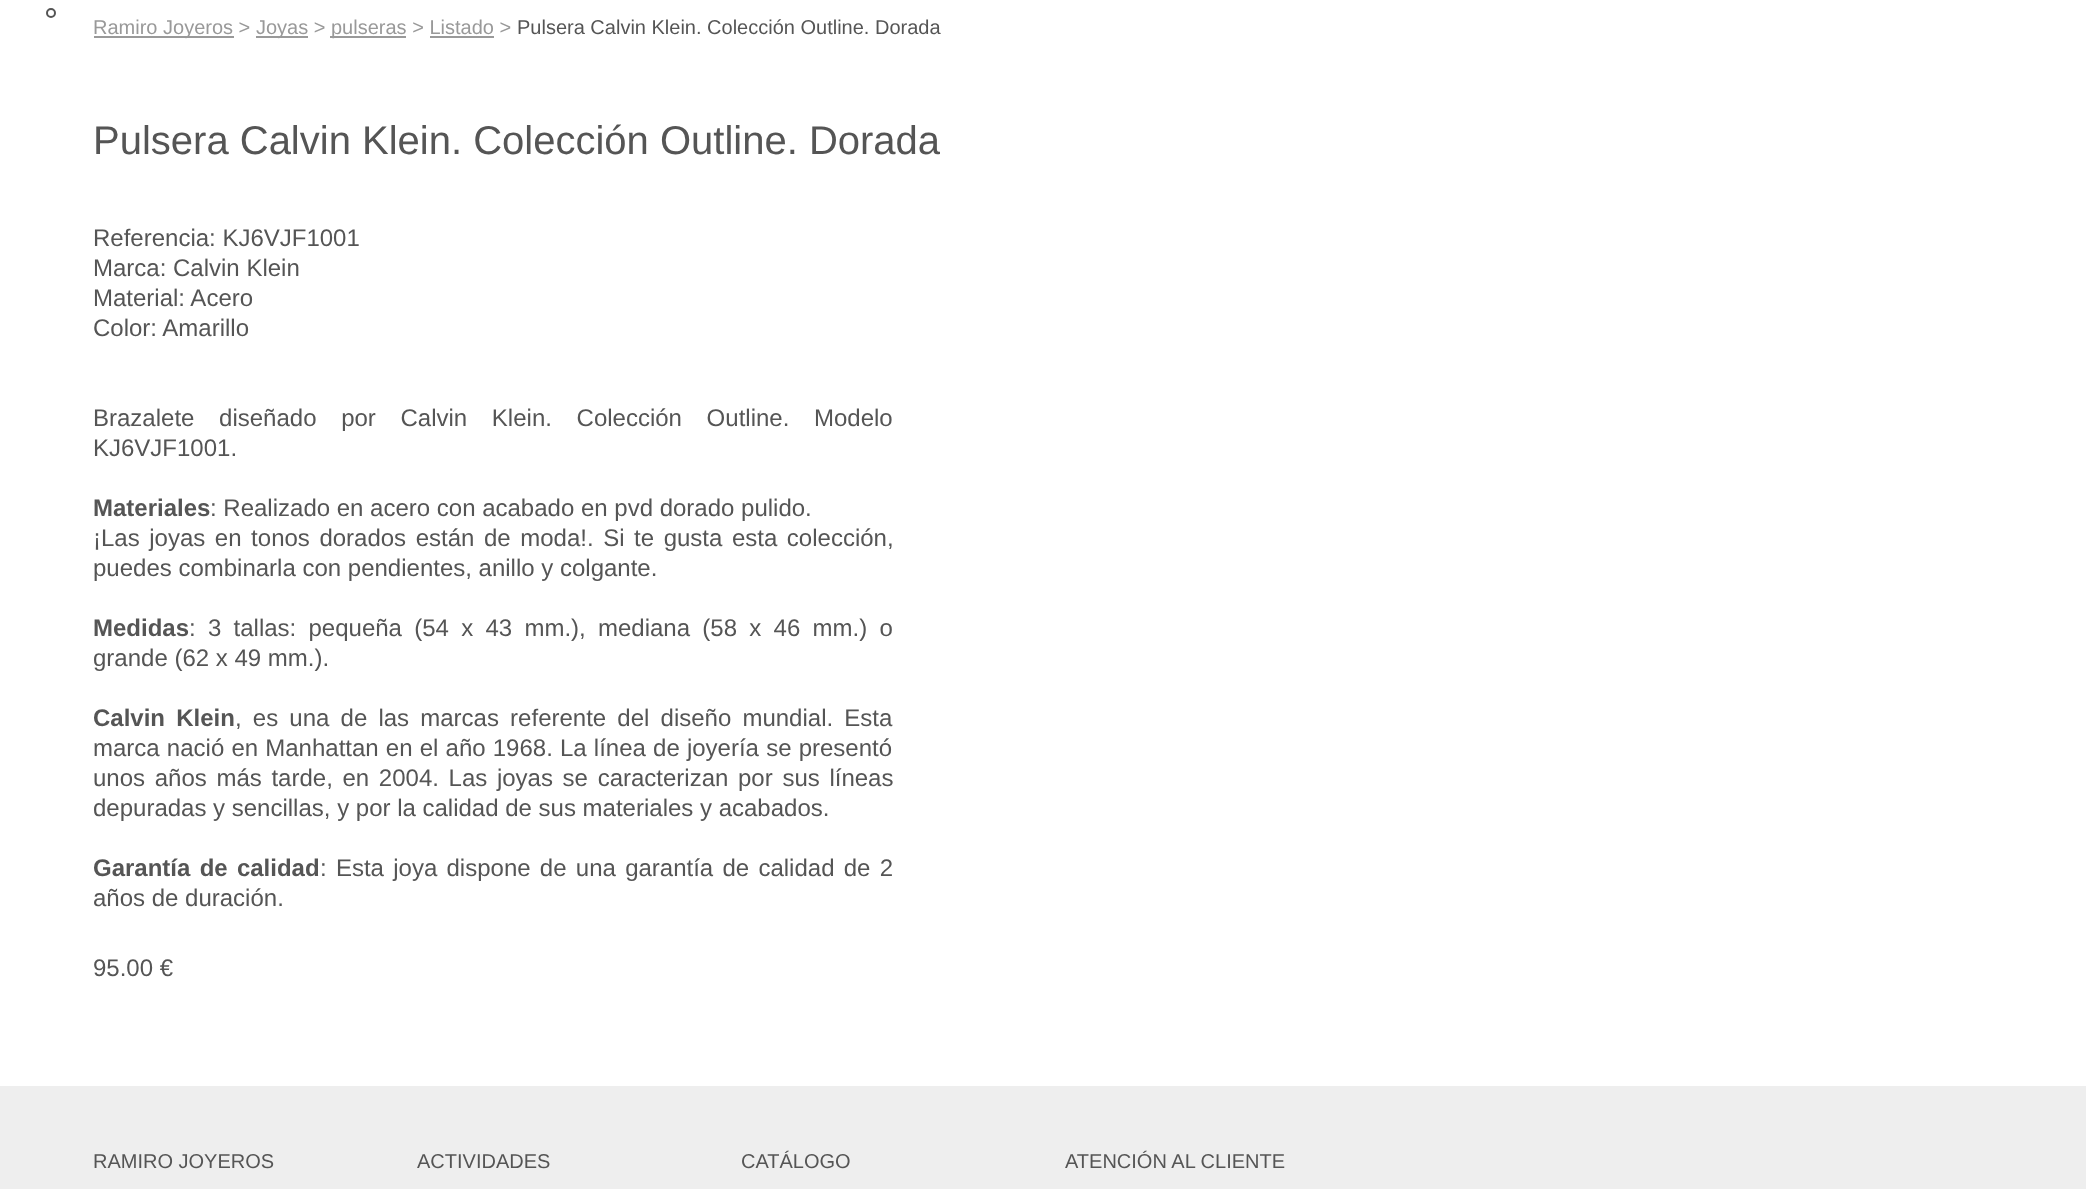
<?xml version="1.0" encoding="UTF-8"?>
<svg xmlns="http://www.w3.org/2000/svg" xmlns:xlink="http://www.w3.org/1999/xlink" width="2086" height="1189">
  <rect width="100%" height="100%" fill="#ffffff" />
  <circle cx="51" cy="13" r="4" fill="none" stroke="#555555" stroke-width="2" />
  <rect x="94" y="36" width="140" height="2" fill="#999999" />
  <rect x="256" y="36" width="52" height="2" fill="#999999" />
  <rect x="330" y="36" width="76" height="2" fill="#999999" />
  <rect x="430" y="36" width="64" height="2" fill="#999999" />
  <rect y="1086" width="2086" height="103" fill="#eeeeee" />
  <text x="93" y="34" style="font-family: Liberation Sans; font-size: 20px; fill: #999999">Ramiro Joyeros &gt;</text>
  <text x="256" y="34" style="font-family: Liberation Sans; font-size: 20px; fill: #999999">Joyas &gt;</text>
  <text x="331" y="34" style="font-family: Liberation Sans; font-size: 20px; fill: #999999">pulseras &gt; Listado &gt;</text>
  <text x="517" y="34" style="font-family: Liberation Sans; font-size: 20px; fill: #555555">Pulsera Calvin Klein. Colección Outline. Dorada</text>
  <text x="93" y="154" style="font-family: Liberation Sans; font-size: 40px; fill: #555555">Pulsera Calvin Klein. Colección Outline. Dorada</text>
  <text x="93" y="246" style="font-family: Liberation Sans; font-size: 24px; fill: #555555">Referencia: KJ6VJF1001</text>
  <text x="93" y="276" style="font-family: Liberation Sans; font-size: 24px; fill: #555555">Marca: Calvin Klein</text>
  <text x="93" y="306" style="font-family: Liberation Sans; font-size: 24px; fill: #555555">Material: Acero</text>
  <text x="93" y="336" style="font-family: Liberation Sans; font-size: 24px; fill: #555555">Color: Amarillo</text>
  <text x="93" y="426" word-spacing="18" style="font-family: Liberation Sans; font-size: 24px; fill: #555555">Brazalete diseñado por Calvin Klein. Colección Outline. Modelo</text>
  <text x="93" y="456" style="font-family: Liberation Sans; font-size: 24px; fill: #555555">KJ6VJF1001.</text>
  <text x="93" y="516" style="font-family: Liberation Sans; font-size: 24px; font-weight: bold; fill: #555555">Materiales</text>
  <text x="210" y="516" style="font-family: Liberation Sans; font-size: 24px; fill: #555555">: Realizado en acero con acabado en pvd dorado pulido.</text>
  <text x="93" y="546" word-spacing="2.9" style="font-family: Liberation Sans; font-size: 24px; fill: #555555">¡Las joyas en tonos dorados están de moda!. Si te gusta esta colección,</text>
  <text x="93" y="576" style="font-family: Liberation Sans; font-size: 24px; fill: #555555">puedes combinarla con pendientes, anillo y colgante.</text>
  <text x="93" y="636" style="font-family: Liberation Sans; font-size: 24px; font-weight: bold; fill: #555555">Medidas</text>
  <text x="189" y="636" word-spacing="5.6" style="font-family: Liberation Sans; font-size: 24px; fill: #555555">: 3 tallas: pequeña (54 x 43 mm.), mediana (58 x 46 mm.) o</text>
  <text x="93" y="666" style="font-family: Liberation Sans; font-size: 24px; fill: #555555">grande (62 x 49 mm.).</text>
  <text x="93" y="726" word-spacing="4.5" style="font-family: Liberation Sans; font-size: 24px; font-weight: bold; fill: #555555">Calvin Klein</text>
  <text x="235" y="726" word-spacing="4.5" style="font-family: Liberation Sans; font-size: 24px; fill: #555555">, es una de las marcas referente del diseño mundial. Esta</text>
  <text x="93" y="756" word-spacing="0.5" style="font-family: Liberation Sans; font-size: 24px; fill: #555555">marca nació en Manhattan en el año 1968. La línea de joyería se presentó</text>
  <text x="93" y="786" word-spacing="3" style="font-family: Liberation Sans; font-size: 24px; fill: #555555">unos años más tarde, en 2004. Las joyas se caracterizan por sus líneas</text>
  <text x="93" y="816" style="font-family: Liberation Sans; font-size: 24px; fill: #555555">depuradas y sencillas, y por la calidad de sus materiales y acabados.</text>
  <text x="93" y="876" word-spacing="2.6" style="font-family: Liberation Sans; font-size: 24px; font-weight: bold; fill: #555555">Garantía de calidad</text>
  <text x="320" y="876" word-spacing="2.6" style="font-family: Liberation Sans; font-size: 24px; fill: #555555">: Esta joya dispone de una garantía de calidad de 2</text>
  <text x="93" y="906" style="font-family: Liberation Sans; font-size: 24px; fill: #555555">años de duración.</text>
  <text x="93" y="976" style="font-family: Liberation Sans; font-size: 24px; fill: #555555">95.00 €</text>
  <text x="93" y="1168" style="font-family: Liberation Sans; font-size: 20px; fill: #555555">RAMIRO JOYEROS</text>
  <text x="417" y="1168" style="font-family: Liberation Sans; font-size: 20px; fill: #555555">ACTIVIDADES</text>
  <text x="741" y="1168" style="font-family: Liberation Sans; font-size: 20px; fill: #555555">CATÁLOGO</text>
  <text x="1065" y="1168" style="font-family: Liberation Sans; font-size: 20px; fill: #555555">ATENCIÓN AL CLIENTE</text>
</svg>
